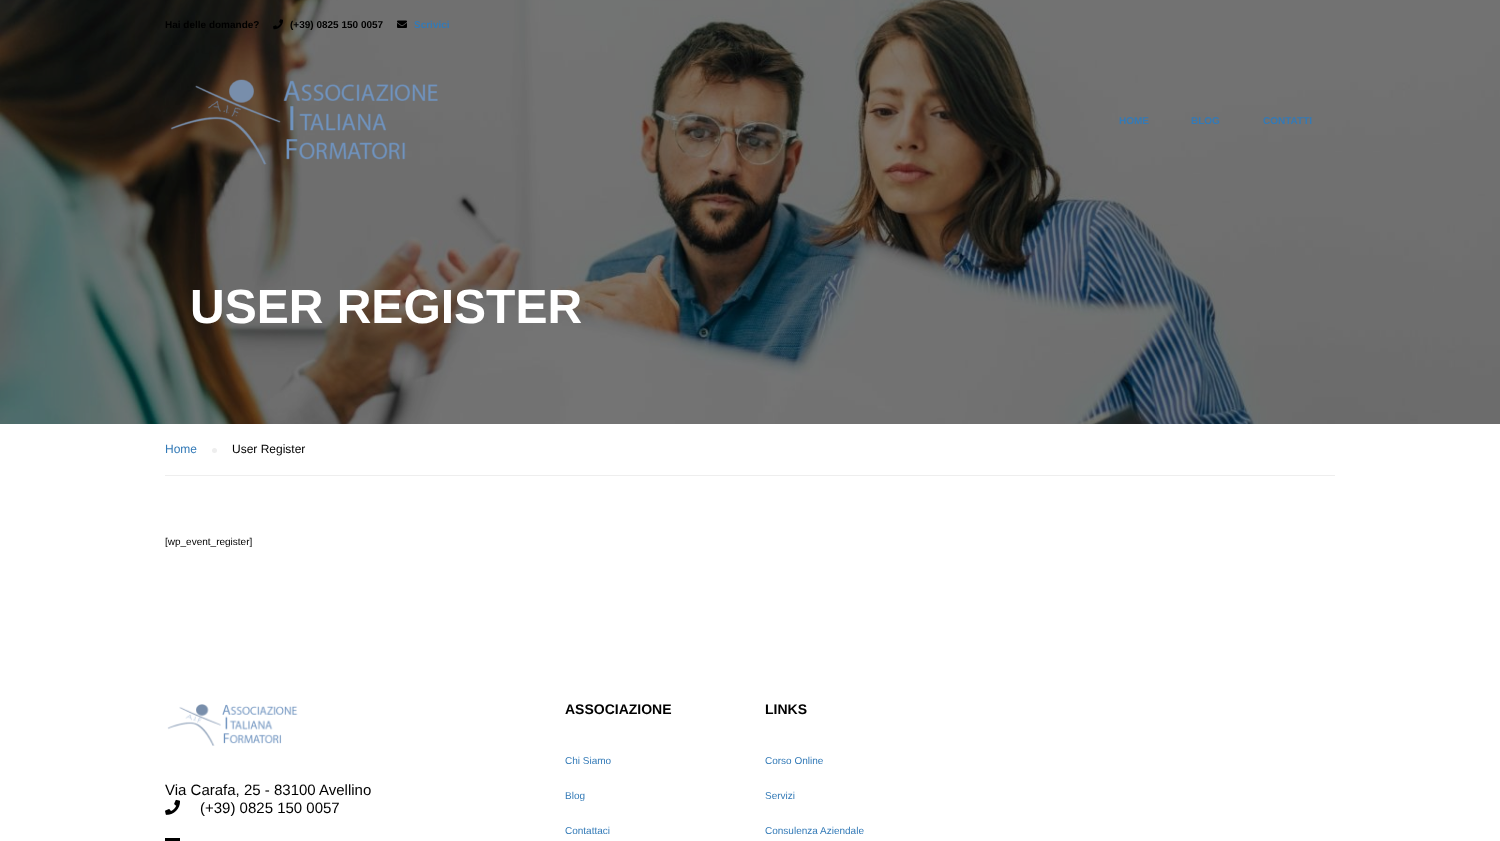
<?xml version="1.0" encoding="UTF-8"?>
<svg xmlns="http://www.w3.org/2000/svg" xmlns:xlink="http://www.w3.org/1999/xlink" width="1500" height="841">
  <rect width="100%" height="100%" fill="#ffffff" />
  <image x="0" y="0" width="1500" height="424" xlink:href="image4.png" />
  <image x="273" y="19" width="10" height="11" xlink:href="image1.png" />
  <image x="397" y="20" width="10" height="8" xlink:href="image2.png" />
  <image x="170" y="79" width="268" height="86" xlink:href="image3.png" />
  <rect x="165" y="475" width="1170" height="1" fill="#eeeeee" />
  <circle cx="214.5" cy="450.5" r="2.5" fill="#eeeeee" />
  <image x="167" y="704" width="131" height="42" xlink:href="image5.png" />
  <image x="165" y="799" width="15" height="16" xlink:href="image6.png" />
  <rect x="165" y="838" width="15" height="3" fill="#000000" />
  <text x="165" y="28" style="font-family: Liberation Sans; font-size: 10px; font-weight: bold; fill: #000000">Hai delle domande?</text>
  <text x="290" y="28" style="font-family: Liberation Sans; font-size: 10px; font-weight: bold; fill: #000000">(+39) 0825 150 0057</text>
  <text x="414" y="28" style="font-family: Liberation Sans; font-size: 10px; font-weight: bold; fill: #337ab7">Scrivici</text>
  <text x="1119" y="124" style="font-family: Liberation Sans; font-size: 10px; font-weight: bold; fill: #337ab7">HOME</text>
  <text x="1191" y="124" style="font-family: Liberation Sans; font-size: 10px; font-weight: bold; fill: #337ab7">BLOG</text>
  <text x="1263" y="124" style="font-family: Liberation Sans; font-size: 10px; font-weight: bold; fill: #337ab7">CONTATTI</text>
  <text x="190" y="323" style="font-family: Liberation Sans; font-size: 48px; font-weight: bold; fill: #ffffff">USER REGISTER</text>
  <text x="165" y="453" style="font-family: Liberation Sans; font-size: 12px; fill: #337ab7">Home</text>
  <text x="232" y="453" style="font-family: Liberation Sans; font-size: 12px; fill: #000000">User Register</text>
  <text x="165" y="545" style="font-family: Liberation Sans; font-size: 10px; fill: #000000">[wp_event_register]</text>
  <text x="165" y="795" style="font-family: Liberation Sans; font-size: 15px; fill: #000000">Via Carafa, 25 - 83100 Avellino</text>
  <text x="200" y="813" style="font-family: Liberation Sans; font-size: 15px; fill: #000000">(+39) 0825 150 0057</text>
  <text x="565" y="714" style="font-family: Liberation Sans; font-size: 14px; font-weight: bold; fill: #000000">ASSOCIAZIONE</text>
  <text x="565" y="764" style="font-family: Liberation Sans; font-size: 10px; fill: #337ab7">Chi Siamo</text>
  <text x="565" y="799" style="font-family: Liberation Sans; font-size: 10px; fill: #337ab7">Blog</text>
  <text x="565" y="834" style="font-family: Liberation Sans; font-size: 10px; fill: #337ab7">Contattaci</text>
  <text x="765" y="714" style="font-family: Liberation Sans; font-size: 14px; font-weight: bold; fill: #000000">LINKS</text>
  <text x="765" y="764" style="font-family: Liberation Sans; font-size: 10px; fill: #337ab7">Corso Online</text>
  <text x="765" y="799" style="font-family: Liberation Sans; font-size: 10px; fill: #337ab7">Servizi</text>
  <text x="765" y="834" style="font-family: Liberation Sans; font-size: 10px; fill: #337ab7">Consulenza Aziendale</text>
</svg>
